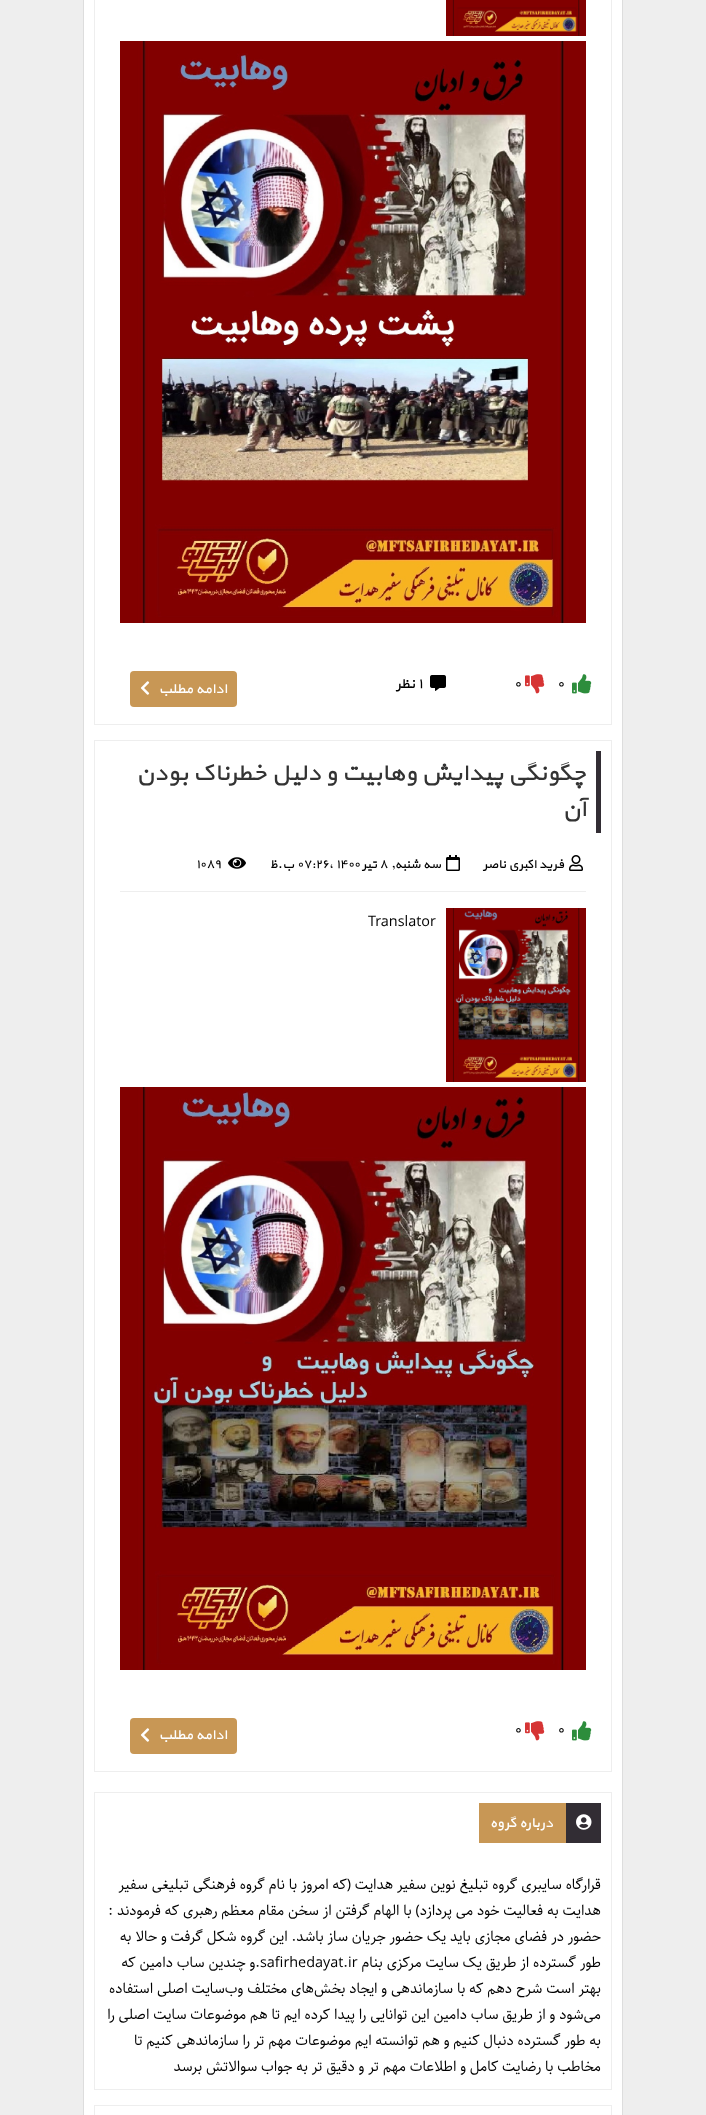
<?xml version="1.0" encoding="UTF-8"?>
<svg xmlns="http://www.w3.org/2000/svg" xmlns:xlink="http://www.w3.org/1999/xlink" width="706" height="2115">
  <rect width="100%" height="100%" fill="#eeeeee" />
  <rect x="84" width="538" height="2115" fill="#ffffff" />
  <rect x="622" width="1" height="2115" fill="#dddddd" />
  <rect x="83" width="1" height="2115" fill="#dddddd" />
  <rect x="94.5" y="-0.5" width="517" height="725" fill="none" stroke="#eeeeee" />
  <image x="446" y="0" width="140" height="36" xlink:href="image1.png" />
  <image x="120" y="41" width="466" height="582" xlink:href="image2.png" />
  <image x="572" y="674" width="20" height="20" xlink:href="image3.png" />
  <image x="525" y="674" width="20" height="20" xlink:href="image4.png" />
  <image x="430" y="675" width="16" height="16" xlink:href="image5.png" />
  <rect x="130" y="671" width="107" height="36" rx="4" fill="#c89755" />
  <image x="140" y="681" width="10" height="14" xlink:href="image6.png" />
  <rect x="94.5" y="740.5" width="517" height="1031" fill="none" stroke="#eeeeee" />
  <rect x="596" y="751" width="5" height="82" fill="#322d34" />
  <rect x="120" y="891" width="466" height="1" fill="#eeeeee" />
  <image x="569" y="855" width="14" height="16" xlink:href="image7.png" />
  <image x="446" y="855" width="14" height="16" xlink:href="image8.png" />
  <image x="228" y="857" width="18" height="12" xlink:href="image9.png" />
  <image x="446" y="908" width="140" height="174" xlink:href="image10.png" />
  <image x="120" y="1087" width="466" height="583" xlink:href="image11.png" />
  <image x="572" y="1721" width="20" height="20" xlink:href="image3.png" />
  <image x="525" y="1721" width="20" height="20" xlink:href="image4.png" />
  <rect x="130" y="1718" width="107" height="36" rx="4" fill="#c89755" />
  <image x="140" y="1728" width="10" height="14" xlink:href="image6.png" />
  <rect x="94.5" y="1792.5" width="517" height="297" fill="none" stroke="#eeeeee" />
  <rect x="479" y="1803" width="87" height="40" fill="#c89755" />
  <rect x="566" y="1803" width="35" height="40" fill="#322d34" />
  <image x="576" y="1814" width="16" height="16" xlink:href="image12.png" />
  <rect x="94.5" y="2105.5" width="517" height="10" fill="none" stroke="#eeeeee" />
  <text x="557" y="688" style="font-family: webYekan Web; font-size: 14.4px; fill: #000000">۰</text>
  <text x="514" y="688" style="font-family: webYekan Web; font-size: 14.4px; fill: #000000">۰</text>
  <text x="418" y="688" style="font-family: webYekan Web; font-size: 14.4px; fill: #000000">۱</text>
  <text x="415" y="688" style="font-family: webYekan Web; font-size: 14.4px; direction: rtl; fill: #000000">نظر</text>
  <text x="227" y="693" style="font-family: webYekan Web; font-size: 14.4px; direction: rtl; fill: #ffffff">ادامه مطلب</text>
  <text x="586" y="780" style="font-family: webYekan Web; font-size: 24px; direction: rtl; fill: #333333">چگونگی پیدایش وهابیت و دلیل خطرناک بودن</text>
  <text x="586" y="816" style="font-family: webYekan Web; font-size: 24px; direction: rtl; fill: #333333">آن</text>
  <text x="564" y="868" style="font-family: webYekan Web; font-size: 12.75px; direction: rtl; fill: #000000">فرید اکبری ناصر</text>
  <text x="441" y="868" style="font-family: webYekan Web; font-size: 12.75px; direction: rtl; fill: #000000">سه شنبه,</text>
  <text x="379" y="868" style="font-family: webYekan Web; font-size: 12.75px; fill: #000000">۸</text>
  <text x="377" y="868" style="font-family: webYekan Web; font-size: 12.75px; direction: rtl; fill: #000000">تیر</text>
  <text x="297" y="868" style="font-family: webYekan Web; font-size: 12.75px; fill: #000000">۰۷:۲۶، ۱۴۰۰</text>
  <text x="294" y="868" style="font-family: webYekan Web; font-size: 12.75px; direction: rtl; fill: #000000">ب.ظ</text>
  <text x="196" y="868" style="font-family: webYekan Web; font-size: 12.75px; fill: #000000">۱۰۸۹</text>
  <text x="368" y="926" style="font-family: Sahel; font-size: 14.4px; fill: #000000">Translator</text>
  <text x="557" y="1734" style="font-family: webYekan Web; font-size: 14.4px; fill: #000000">۰</text>
  <text x="514" y="1734" style="font-family: webYekan Web; font-size: 14.4px; fill: #000000">۰</text>
  <text x="227" y="1739" style="font-family: webYekan Web; font-size: 14.4px; direction: rtl; fill: #ffffff">ادامه مطلب</text>
  <text x="553" y="1827" style="font-family: webYekan Web; font-size: 14.4px; direction: rtl; fill: #ffffff">درباره گروه</text>
  <text x="601" y="1889" style="font-family: Sahel; font-size: 14.4px; direction: rtl; fill: #000000">قرارگاه سایبری گروه تبلیغ نوین سفیر هدایت (که امروز با نام گروه فرهنگی تبلیغی سفیر</text>
  <text x="601" y="1915" style="font-family: Sahel; font-size: 14.4px; direction: rtl; fill: #000000">هدایت به فعالیت خود می پردازد) با الهام گرفتن از سخن مقام معظم رهبری که فرمودند :</text>
  <text x="601" y="1941" style="font-family: Sahel; font-size: 14.4px; direction: rtl; fill: #000000">حضور در فضای مجازی باید یک حضور جریان ساز باشد. این گروه شکل گرفت و حالا به</text>
  <text x="601" y="1967" style="font-family: Sahel; font-size: 14.4px; direction: rtl; fill: #000000">طور گسترده از طریق یک سایت مرکزی بنام</text>
  <text x="260" y="1967" style="font-family: Sahel; font-size: 14.4px; fill: #000000">safirhedayat.ir</text>
  <text x="260" y="1967" style="font-family: Sahel; font-size: 14.4px; direction: rtl; fill: #000000">.و چندین ساب دامین که</text>
  <text x="601" y="1993" style="font-family: Sahel; font-size: 14.4px; direction: rtl; fill: #000000">بهتر است شرح دهم که با سازماندهی و ایجاد بخش‌های مختلف وب‌سایت اصلی استفاده</text>
  <text x="601" y="2019" style="font-family: Sahel; font-size: 14.4px; direction: rtl; fill: #000000">می‌شود و از طریق ساب دامین این توانایی را پیدا کرده ایم تا هم موضوعات سایت اصلی را</text>
  <text x="601" y="2045" style="font-family: Sahel; font-size: 14.4px; direction: rtl; fill: #000000">به طور گسترده دنبال کنیم و هم توانسته ایم موضوعات مهم تر را سازماندهی کنیم تا</text>
  <text x="601" y="2071" style="font-family: Sahel; font-size: 14.4px; direction: rtl; fill: #000000">مخاطب با رضایت کامل و اطلاعات مهم تر و دقیق تر به جواب سوالاتش برسد</text>
</svg>
